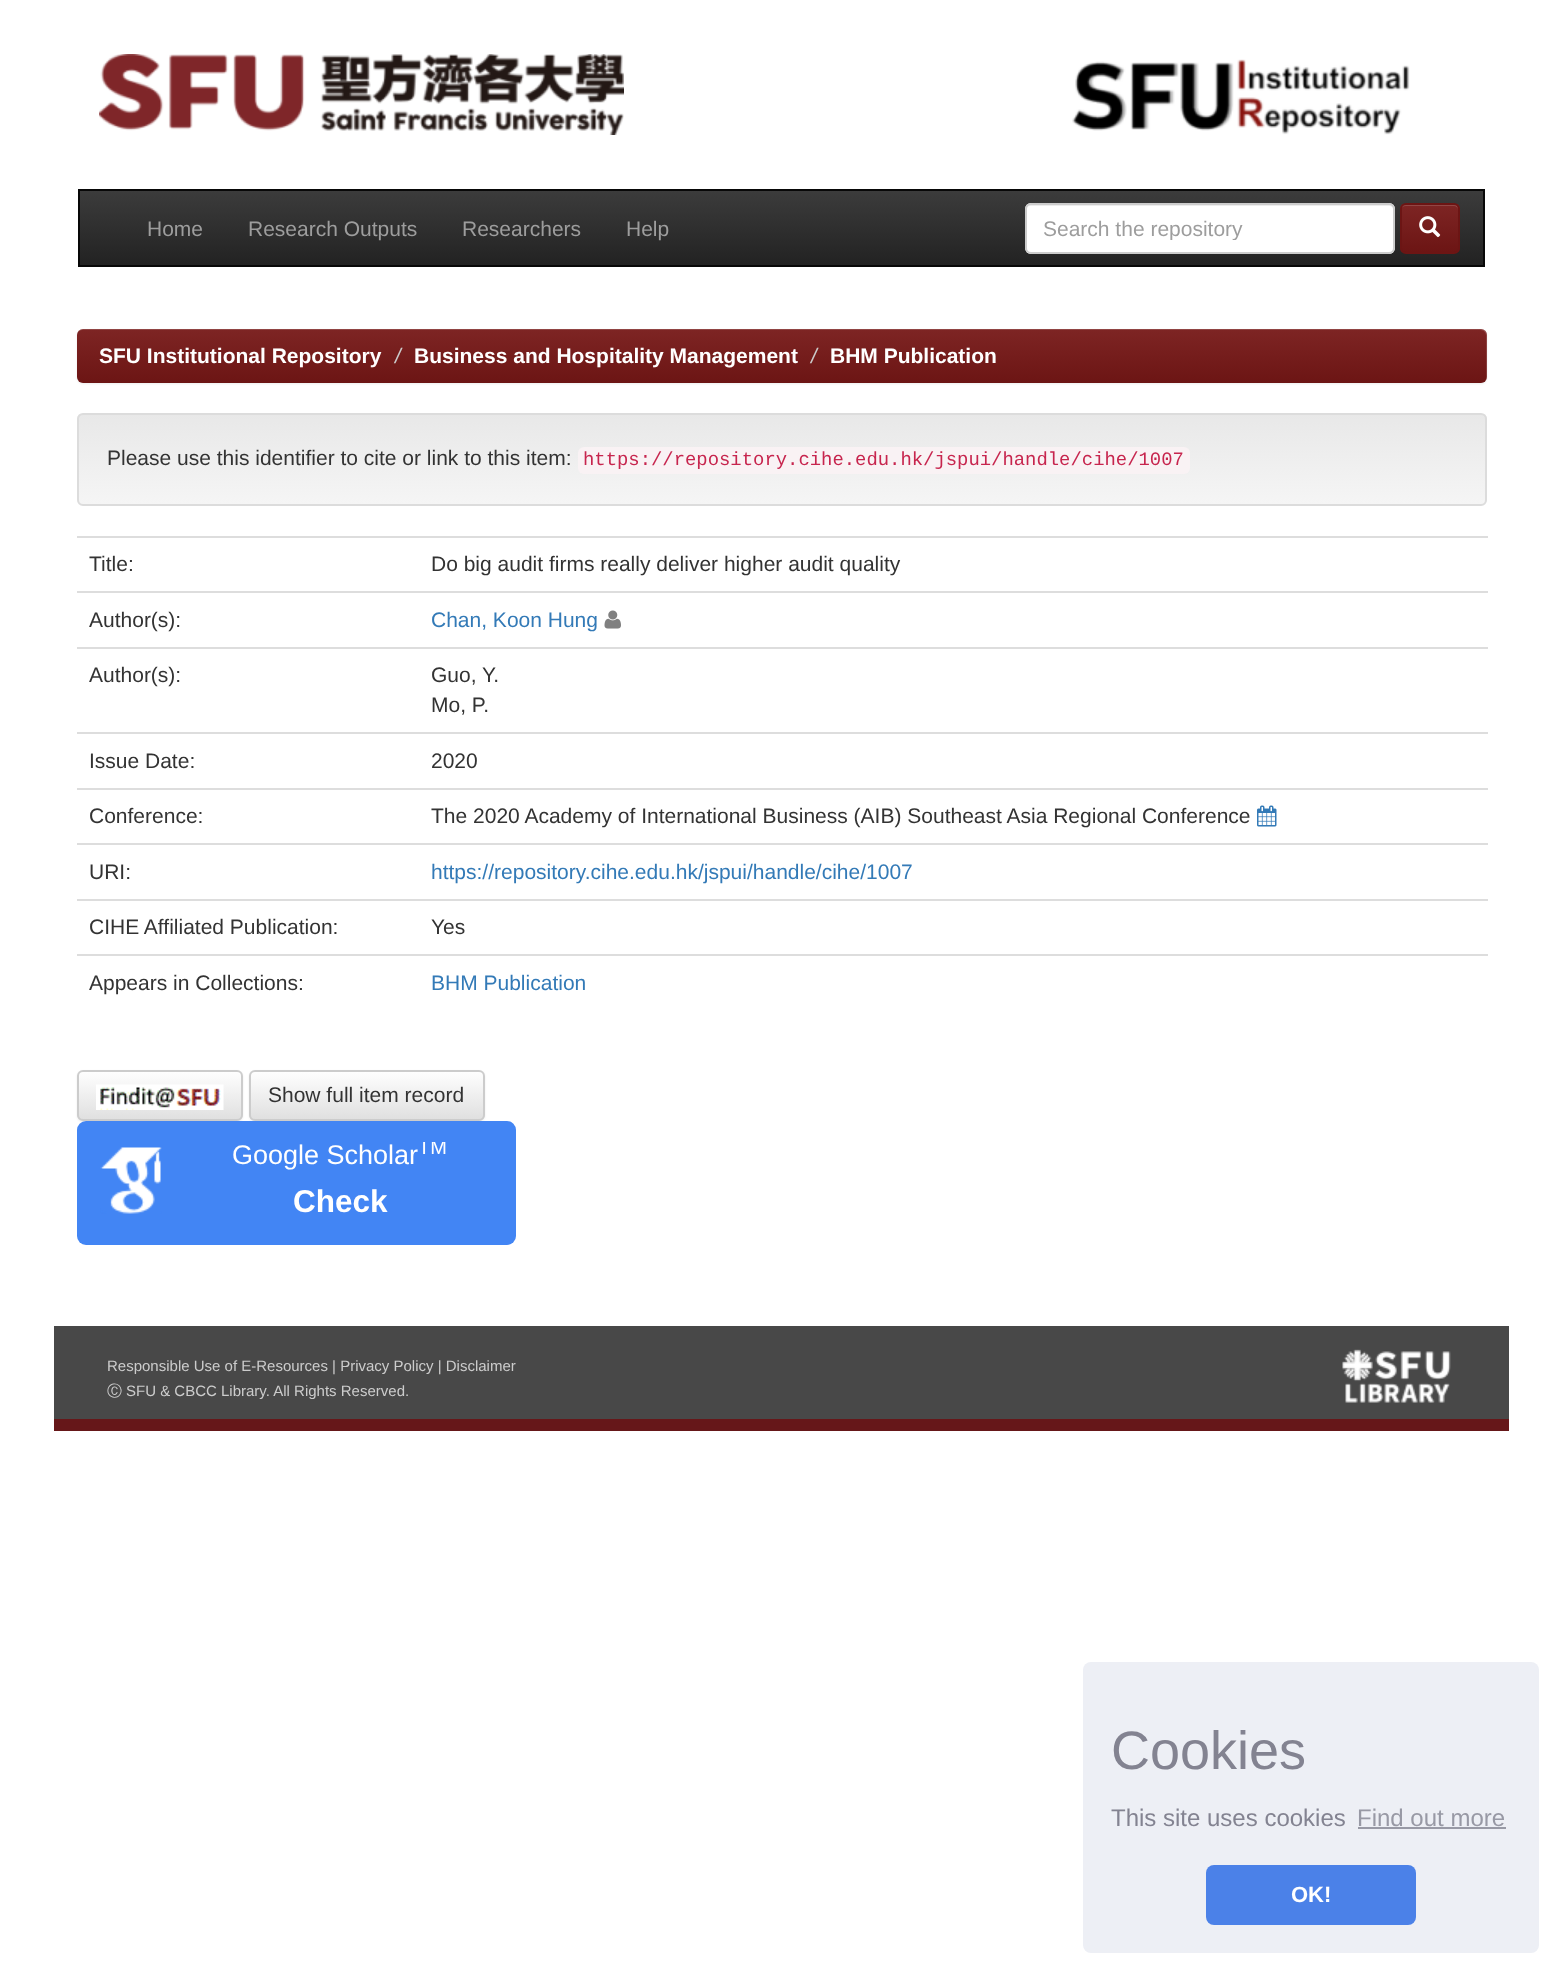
<?xml version="1.0" encoding="UTF-8"?>
<svg xmlns="http://www.w3.org/2000/svg" xmlns:xlink="http://www.w3.org/1999/xlink" width="1563" height="1976">
  <defs>
    <linearGradient id="g1" gradientUnits="userSpaceOnUse" x1="782" y1="190" x2="782" y2="266"><stop offset="0" stop-color="#3c3c3c" /><stop offset="1" stop-color="#222222" /></linearGradient>
    <clipPath id="clip1"><rect x="1400" y="203" width="60" height="51" rx="6" /></clipPath>
    <linearGradient id="g2" gradientUnits="userSpaceOnUse" x1="1430" y1="204" x2="1430" y2="252"><stop offset="0" stop-color="#7e2524" /><stop offset="1" stop-color="#6c1514" /></linearGradient>
    <linearGradient id="g3" gradientUnits="userSpaceOnUse" x1="782" y1="328" x2="782" y2="383"><stop offset="0" stop-color="#7e2524" /><stop offset="1" stop-color="#6c1514" /></linearGradient>
    <clipPath id="clip2"><rect x="77" y="413" width="1410" height="93" rx="6" /></clipPath>
    <linearGradient id="g4" gradientUnits="userSpaceOnUse" x1="782" y1="414" x2="782" y2="504"><stop offset="0" stop-color="#e8e8e8" /><stop offset="1" stop-color="#f5f5f5" /></linearGradient>
    <clipPath id="clip3"><rect x="77" y="1070" width="166" height="51" rx="6" /></clipPath>
    <linearGradient id="g5" gradientUnits="userSpaceOnUse" x1="160" y1="1071" x2="160" y2="1119"><stop offset="0" stop-color="#ffffff" /><stop offset="1" stop-color="#e0e0e0" /></linearGradient>
    <clipPath id="clip4"><rect x="249" y="1070" width="236" height="51" rx="6" /></clipPath>
    <linearGradient id="g6" gradientUnits="userSpaceOnUse" x1="367" y1="1071" x2="367" y2="1119"><stop offset="0" stop-color="#ffffff" /><stop offset="1" stop-color="#e0e0e0" /></linearGradient>
    <clipPath id="clip5"><rect x="1044" y="216" width="332" height="24" /></clipPath>
    <clipPath id="clip6"><rect x="185" y="1142" width="310" height="82" /></clipPath>
  </defs>
  <rect width="100%" height="100%" fill="#ffffff" />
  <image x="99" y="54" width="525" height="81" xlink:href="image1.png" />
  <image x="1072" y="59" width="338" height="76" xlink:href="image2.png" />
  <rect x="80" y="191" width="1403" height="74" fill="url(#g1)" />
  <rect x="79" y="190" width="1405" height="76" fill="none" stroke="#080808" stroke-width="2" />
  <rect x="1025" y="203" width="370" height="51" rx="6" fill="#ffffff" />
  <path d="M 1030 206 h 359 c 2 0 5 2 5 4 v -1 c 0 -3 -2 -5 -5 -5 h -358 c -3 0 -5 2 -5 5 v 1 c 0 -2 2 -4 4 -4 z" fill="#ececec" />
  <rect x="1026" y="204" width="368" height="49" rx="5" fill="none" stroke="#cccccc" stroke-width="2" />
  <g clip-path="url(#clip1)">
    <rect x="1400" y="204" width="60" height="48" fill="url(#g2)" />
  </g>
  <path d="M 1406 206 h 48 c 2 0 4 2 4 4 c 0 -8 -7 -6 -13 -6 h -31 c -6 0 -13 -2 -13 6 c 0 -2 2 -4 5 -4 z" fill="#914645" />
  <rect x="1401" y="204" width="58" height="49" rx="5" fill="none" stroke="#6c1514" stroke-width="2" />
  <image x="1419" y="216" width="22" height="22" xlink:href="image3.png" />
  <rect x="77" y="330" width="1410" height="54" rx="6" fill="#000000" fill-opacity="0.07" filter="blur(1px)" />
  <rect x="77" y="329" width="1410" height="54" rx="6" fill="url(#g3)" />
  <path d="M 82 330 h 1398 c 4 0 6 3 6 6 v 42 c 0 1 0 2 -1 3 c 1 -1 2 -2 2 -4 v -42 c 0 -3 -3 -6 -6 -6 h -1398 c -2 0 -4 1 -5 3 c 1 -1 3 -2 4 -2 z" fill="#ffffff" fill-opacity="0.15" />
  <g clip-path="url(#clip2)">
    <rect x="77" y="414" width="1410" height="90" fill="url(#g4)" />
  </g>
  <rect x="78" y="414" width="1408" height="91" rx="5" fill="none" stroke="#dcdcdc" stroke-width="2" />
  <rect x="578" y="447" width="612" height="27" rx="6" fill="#f9f2f4" />
  <rect x="77" y="536" width="1411" height="2" fill="#dddddd" />
  <rect x="77" y="591" width="1411" height="2" fill="#dddddd" />
  <image x="604" y="610" width="17" height="19" xlink:href="image4.png" />
  <rect x="77" y="647" width="1411" height="2" fill="#dddddd" />
  <rect x="77" y="732" width="1411" height="2" fill="#dddddd" />
  <rect x="77" y="788" width="1411" height="2" fill="#dddddd" />
  <image x="1257" y="805" width="20" height="22" xlink:href="image5.png" />
  <rect x="77" y="843" width="1411" height="2" fill="#dddddd" />
  <rect x="77" y="899" width="1411" height="2" fill="#dddddd" />
  <rect x="77" y="954" width="1411" height="2" fill="#dddddd" />
  <rect x="77" y="1071" width="166" height="51" rx="6" fill="#000000" fill-opacity="0.07" filter="blur(1px)" />
  <g clip-path="url(#clip3)">
    <rect x="77" y="1071" width="166" height="48" fill="url(#g5)" />
  </g>
  <rect x="78" y="1071" width="164" height="49" rx="5" fill="none" stroke="#cccccc" stroke-width="2" />
  <image x="96" y="1084" width="128" height="26" xlink:href="image6.png" />
  <rect x="249" y="1071" width="236" height="51" rx="6" fill="#000000" fill-opacity="0.07" filter="blur(1px)" />
  <g clip-path="url(#clip4)">
    <rect x="249" y="1071" width="236" height="48" fill="url(#g6)" />
  </g>
  <rect x="250" y="1071" width="234" height="49" rx="5" fill="none" stroke="#cccccc" stroke-width="2" />
  <rect x="77" y="1121" width="439" height="124" rx="9" fill="#4285f4" />
  <image x="100" y="1147" width="62" height="67" xlink:href="image7.png" />
  <rect x="54" y="1326" width="1455" height="93" fill="#484848" />
  <rect x="54" y="1419" width="1455" height="12" fill="#661719" />
  <image x="1342" y="1349" width="109" height="54" xlink:href="image8.png" />
  <rect x="1083" y="1662" width="456" height="291" rx="8" fill="#edeff5" />
  <rect x="1358" y="1827" width="148" height="2" fill="#9899a5" />
  <rect x="1206" y="1865" width="210" height="60" rx="8" fill="#4b81e8" />
  <text x="147" y="236" style="font-family: Liberation Sans; font-size: 21px; fill: #9d9d9d">Home</text>
  <text x="248" y="236" style="font-family: Liberation Sans; font-size: 21px; fill: #9d9d9d">Research Outputs</text>
  <text x="462" y="236" style="font-family: Liberation Sans; font-size: 21px; fill: #9d9d9d">Researchers</text>
  <text x="626" y="236" style="font-family: Liberation Sans; font-size: 21px; fill: #9d9d9d">Help</text>
  <g clip-path="url(#clip5)">
    <text x="1043" y="236" style="font-family: Liberation Sans; font-size: 21px; fill: #9d9d9d">Search the repository</text>
  </g>
  <text x="99" y="363" style="font-family: Liberation Sans; font-size: 21px; font-weight: bold; fill: #ffffff">SFU Institutional Repository</text>
  <text x="395" y="363" style="font-family: Liberation Sans; font-size: 21px; font-style: italic; fill: #cccccc">/</text>
  <text x="414" y="363" style="font-family: Liberation Sans; font-size: 21px; font-weight: bold; fill: #ffffff">Business and Hospitality Management</text>
  <text x="811" y="363" style="font-family: Liberation Sans; font-size: 21px; font-style: italic; fill: #cccccc">/</text>
  <text x="830" y="363" style="font-family: Liberation Sans; font-size: 21px; font-weight: bold; fill: #ffffff">BHM Publication</text>
  <text x="107" y="465" style="font-family: Liberation Sans; font-size: 21px; fill: #333333">Please use this identifier to cite or link to this item:</text>
  <text x="583" y="465" style="font-family: Liberation Mono; font-size: 18.9px; fill: #c7254e">https://repository.cihe.edu.hk/jspui/handle/cihe/1007</text>
  <text x="89" y="571" style="font-family: Liberation Sans; font-size: 21px; fill: #333333">Title:</text>
  <text x="431" y="571" style="font-family: Liberation Sans; font-size: 21px; fill: #333333">Do big audit firms really deliver higher audit quality</text>
  <text x="89" y="627" style="font-family: Liberation Sans; font-size: 21px; fill: #333333">Author(s):</text>
  <text x="431" y="627" style="font-family: Liberation Sans; font-size: 21px; fill: #337ab7">Chan, Koon Hung</text>
  <text x="89" y="682" style="font-family: Liberation Sans; font-size: 21px; fill: #333333">Author(s):</text>
  <text x="431" y="682" style="font-family: Liberation Sans; font-size: 21px; fill: #333333">Guo, Y.</text>
  <text x="431" y="712" style="font-family: Liberation Sans; font-size: 21px; fill: #333333">Mo, P.</text>
  <text x="89" y="768" style="font-family: Liberation Sans; font-size: 21px; fill: #333333">Issue Date:</text>
  <text x="431" y="768" style="font-family: Liberation Sans; font-size: 21px; fill: #333333">2020</text>
  <text x="89" y="823" style="font-family: Liberation Sans; font-size: 21px; fill: #333333">Conference:</text>
  <text x="431" y="823" style="font-family: Liberation Sans; font-size: 21px; fill: #333333">The 2020 Academy of International Business (AIB) Southeast Asia Regional Conference</text>
  <text x="89" y="879" style="font-family: Liberation Sans; font-size: 21px; fill: #333333">URI:</text>
  <text x="431" y="879" style="font-family: Liberation Sans; font-size: 21px; fill: #337ab7">https://repository.cihe.edu.hk/jspui/handle/cihe/1007</text>
  <text x="89" y="934" style="font-family: Liberation Sans; font-size: 21px; fill: #333333">CIHE Affiliated Publication:</text>
  <text x="431" y="934" style="font-family: Liberation Sans; font-size: 21px; fill: #333333">Yes</text>
  <text x="89" y="990" style="font-family: Liberation Sans; font-size: 21px; fill: #333333">Appears in Collections:</text>
  <text x="431" y="990" style="font-family: Liberation Sans; font-size: 21px; fill: #337ab7">BHM Publication</text>
  <text x="268" y="1102" style="font-family: Liberation Sans; font-size: 21px; fill: #333333">Show full item record</text>
  <text x="232" y="1164" style="font-family: Liberation Sans; font-size: 27px; fill: #ffffff">Google Scholar</text>
  <g clip-path="url(#clip6)">
    <text x="418" y="1154" style="font-family: Liberation Sans; font-size: 20px; fill: #ffffff">TM</text>
  </g>
  <text x="293" y="1212" style="font-family: Liberation Sans; font-size: 31.5px; font-weight: bold; fill: #ffffff">Check</text>
  <text x="107" y="1371" style="font-family: Liberation Sans; font-size: 15px; fill: #cccccc">Responsible Use of E-Resources | Privacy Policy | Disclaimer</text>
  <text x="107" y="1396" style="font-family: WenQuanYi Zen Hei; font-size: 15px; font-weight: 500; fill: #cccccc">Ⓒ</text>
  <text x="126" y="1396" style="font-family: Liberation Sans; font-size: 15px; fill: #cccccc">SFU &amp; CBCC Library. All Rights Reserved.</text>
  <text x="1111" y="1769" style="font-family: Liberation Sans; font-size: 54px; fill: #838391">Cookies</text>
  <text x="1111" y="1826" style="font-family: Liberation Sans; font-size: 24px; fill: #838391">This site uses cookies</text>
  <text x="1357" y="1826" style="font-family: Liberation Sans; font-size: 24px; fill: #9899a5">Find out more</text>
  <text x="1291" y="1902" style="font-family: Liberation Sans; font-size: 22px; font-weight: bold; fill: #ffffff">OK!</text>
</svg>
